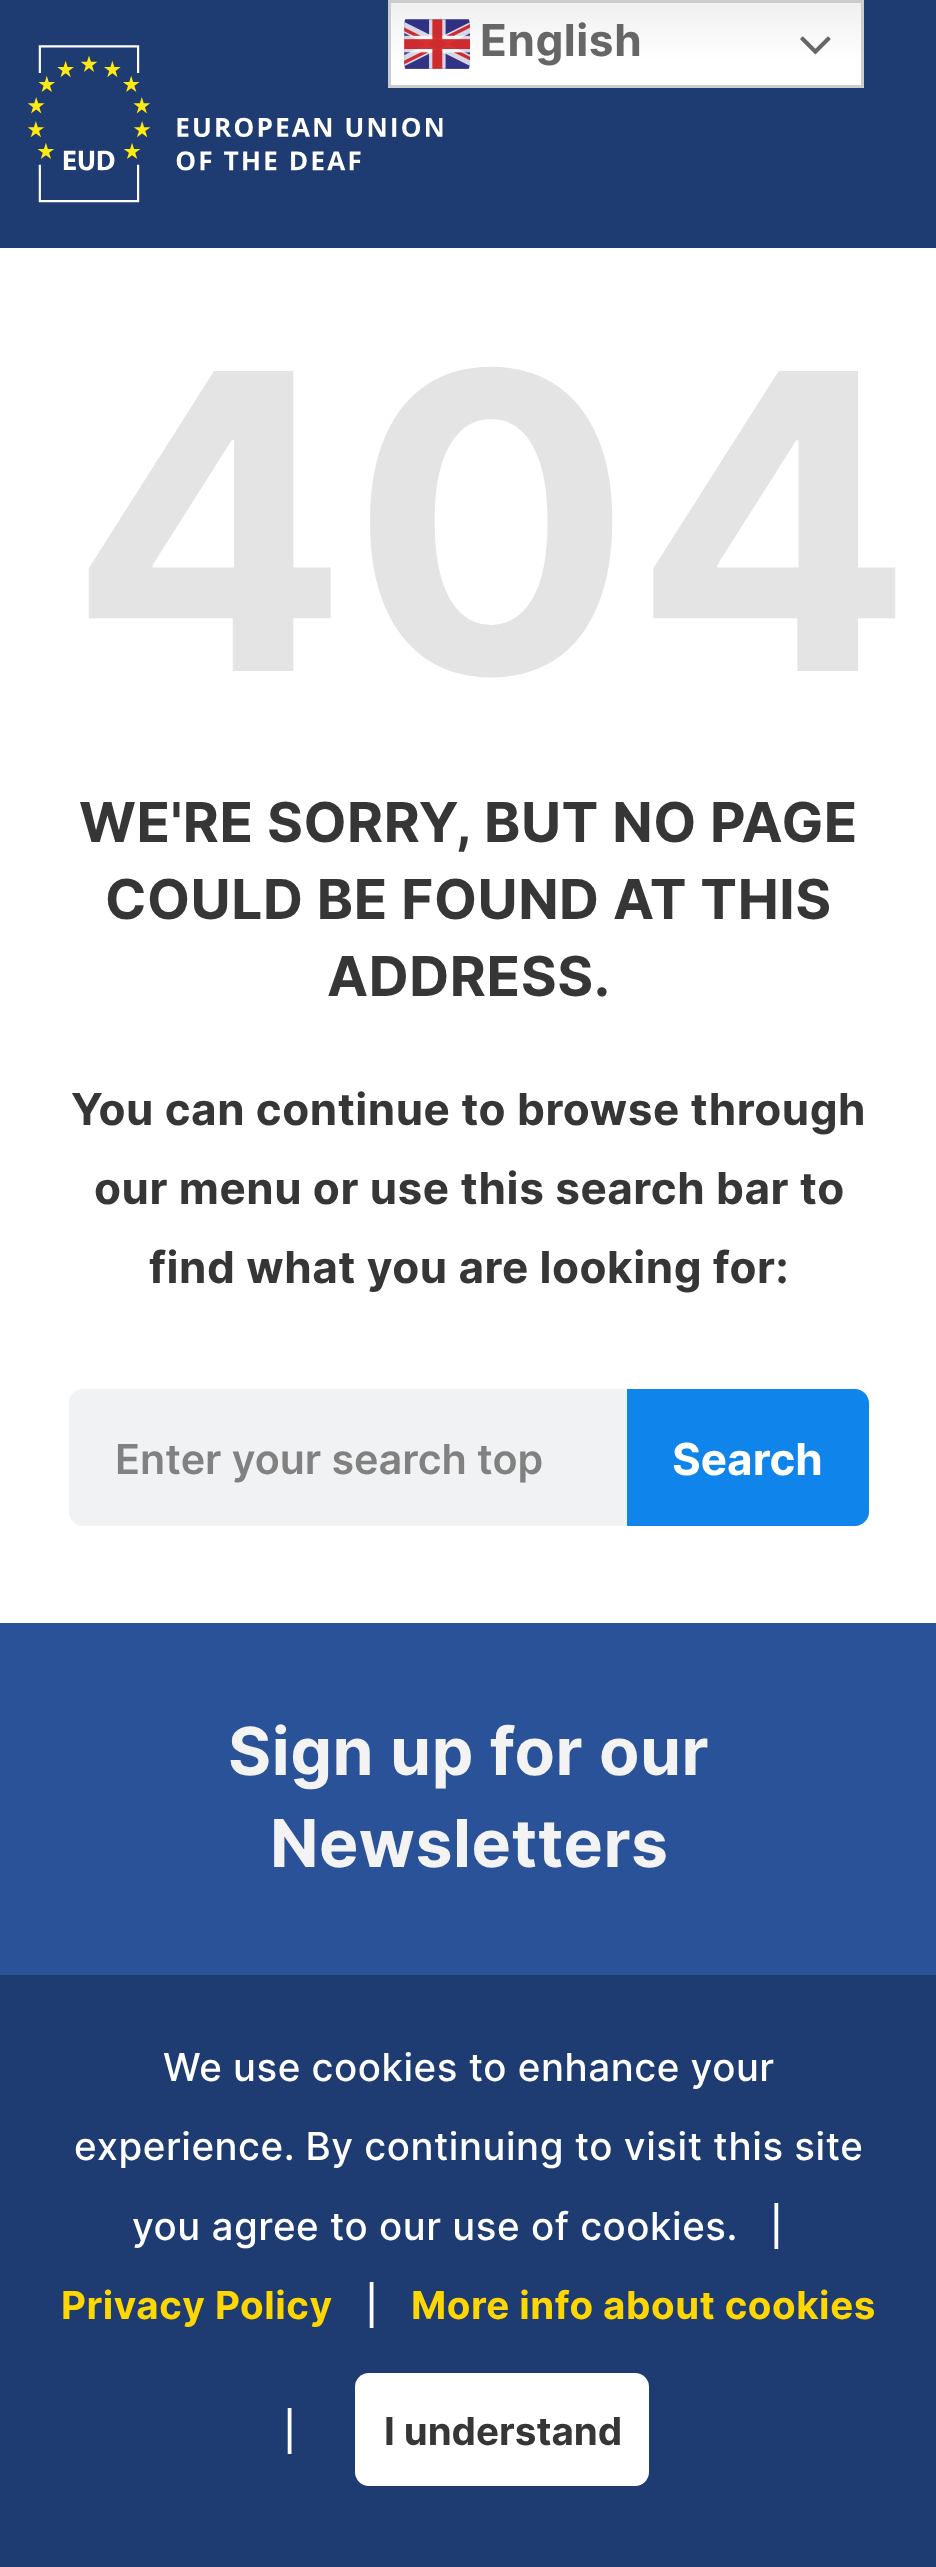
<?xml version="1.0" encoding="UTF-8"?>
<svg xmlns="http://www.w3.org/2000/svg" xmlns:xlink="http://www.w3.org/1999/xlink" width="936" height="2567">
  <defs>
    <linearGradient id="g1" gradientUnits="userSpaceOnUse" x1="626" y1="0" x2="626" y2="88"><stop offset="0" stop-color="#efefef" /><stop offset="0.7" stop-color="#ffffff" /></linearGradient>
  </defs>
  <rect width="100%" height="100%" fill="#ffffff" />
  <rect width="936" height="248" fill="#1e3c72" />
  <image x="28" y="45" width="415" height="158" xlink:href="image1.png" />
  <rect x="391" y="3" width="470" height="82" fill="url(#g1)" />
  <rect x="389.5" y="1.5" width="473" height="85" fill="none" stroke="#cccccc" stroke-width="3" />
  <image x="404" y="19" width="66" height="50" xlink:href="image2.png" />
  <image x="800" y="36" width="31" height="19" xlink:href="image3.png" />
  <rect x="69" y="1389" width="800" height="137" rx="14" fill="#f1f2f3" />
  <path d="M 627 1389 h 228 c 7.5 0 14 6.5 14 14 v 109 c 0 7.5 -6.5 14 -14 14 h -228 z" fill="#0f84eb" />
  <rect y="1623" width="936" height="352" fill="#2a5298" />
  <rect y="1975" width="936" height="592" fill="#1e3c72" />
  <rect x="355" y="2373" width="294" height="113" rx="14" fill="#ffffff" />
  <text x="480" y="56" style="font-family: Inter; font-size: 44px; font-weight: bold; letter-spacing: 0.55px; fill: #666666">English</text>
  <text x="69" y="671" style="font-family: Inter; font-size: 412.5px; font-weight: bold; letter-spacing: 0.55px; fill: #e4e4e4">404</text>
  <text x="79" y="842" style="font-family: Inter; font-size: 55px; font-weight: bold; letter-spacing: 0.55px; fill: #363636">WE'RE SORRY, BUT NO PAGE</text>
  <text x="105" y="919" style="font-family: Inter; font-size: 55px; font-weight: bold; letter-spacing: 0.55px; fill: #363636">COULD BE FOUND AT THIS</text>
  <text x="327" y="996" style="font-family: Inter; font-size: 55px; font-weight: bold; letter-spacing: 0.55px; fill: #363636">ADDRESS.</text>
  <text x="71" y="1125" style="font-family: Inter; font-size: 44px; font-weight: bold; letter-spacing: 0.55px; fill: #363636">You can continue to browse through</text>
  <text x="94" y="1204" style="font-family: Inter; font-size: 44px; font-weight: bold; letter-spacing: 0.55px; fill: #363636">our menu or use this search bar to</text>
  <text x="149" y="1283" style="font-family: Inter; font-size: 44px; font-weight: bold; letter-spacing: 0.55px; fill: #363636">find what you are looking for:</text>
  <text x="115" y="1474" style="font-family: Inter; font-size: 41.25px; font-weight: 600; fill: #818182">Enter your search top</text>
  <text x="672" y="1475" style="font-family: Inter; font-size: 44px; font-weight: bold; fill: #ffffff">Search</text>
  <text x="228" y="1775" style="font-family: Inter; font-size: 66px; font-weight: bold; letter-spacing: 0.55px; fill: #f4f3f3">Sign up for our</text>
  <text x="270" y="1867" style="font-family: Inter; font-size: 66px; font-weight: bold; letter-spacing: 0.55px; fill: #f4f3f3">Newsletters</text>
  <text x="163" y="2081" style="font-family: Inter; font-size: 38.5px; font-weight: 500; letter-spacing: 0.55px; fill: #ffffff">We use cookies to enhance your</text>
  <text x="74" y="2160" style="font-family: Inter; font-size: 38.5px; font-weight: 500; letter-spacing: 0.55px; fill: #ffffff">experience. By continuing to visit this site</text>
  <text x="132" y="2240" style="font-family: Inter; font-size: 38.5px; font-weight: 500; letter-spacing: 0.55px; fill: #ffffff" xml:space="preserve">you agree to our use of cookies.   |</text>
  <text x="61" y="2319" style="font-family: Inter; font-size: 38.5px; font-weight: bold; letter-spacing: 0.55px; fill: #ffd700">Privacy Policy</text>
  <text x="365" y="2319" style="font-family: Inter; font-size: 38.5px; font-weight: 500; letter-spacing: 0.55px; fill: #ffffff">|</text>
  <text x="411" y="2319" style="font-family: Inter; font-size: 38.5px; font-weight: bold; letter-spacing: 0.55px; fill: #ffd700">More info about cookies</text>
  <text x="283" y="2445" style="font-family: Inter; font-size: 38.5px; font-weight: 500; letter-spacing: 0.55px; fill: #ffffff">|</text>
  <text x="384" y="2445" style="font-family: Inter; font-size: 38.5px; font-weight: bold; fill: #363636">I understand</text>
</svg>
